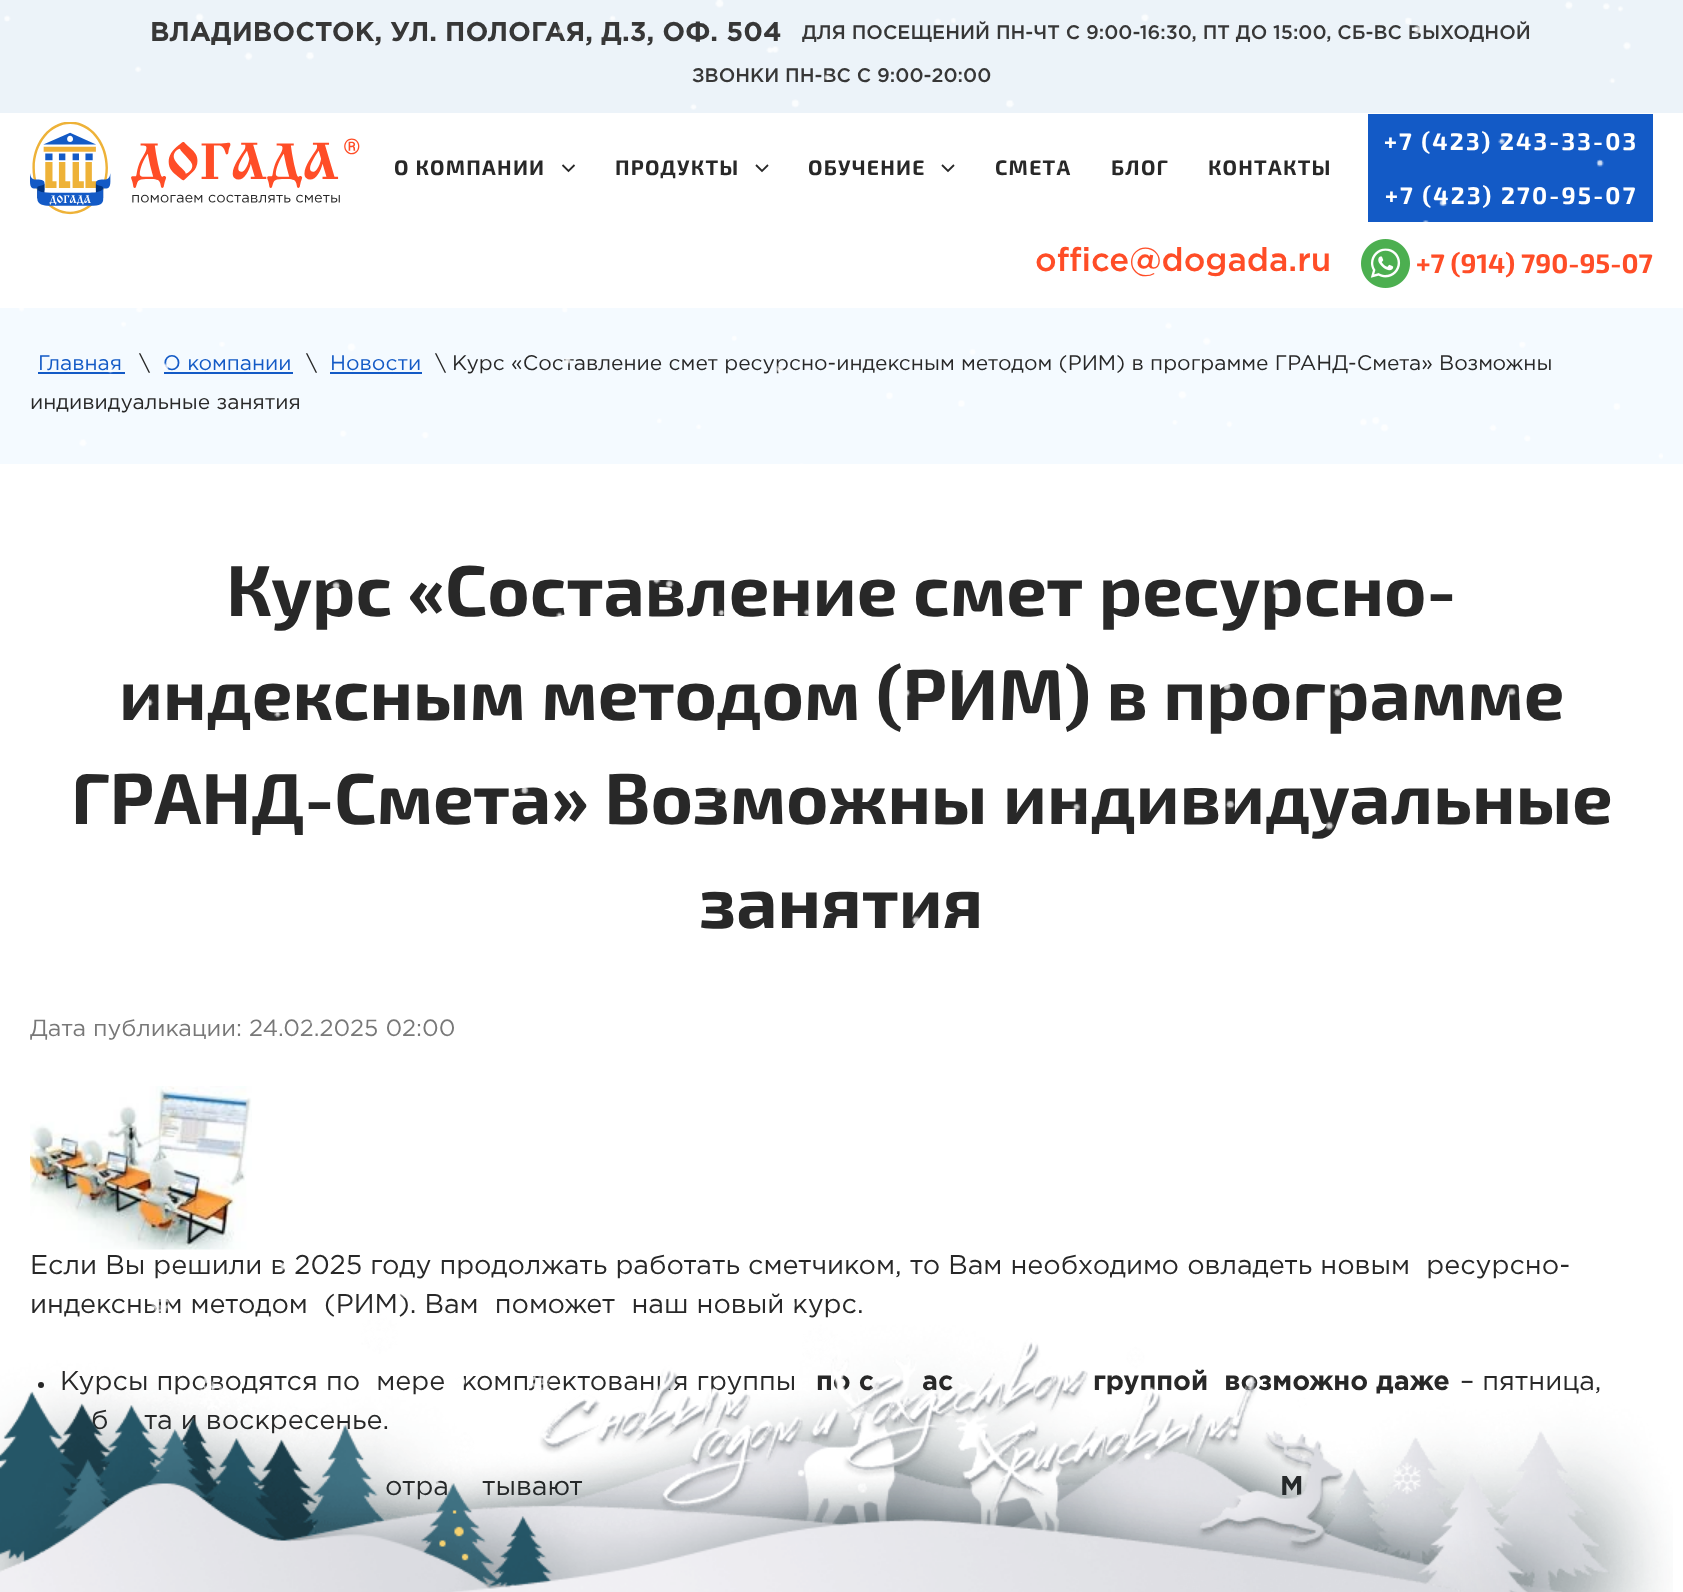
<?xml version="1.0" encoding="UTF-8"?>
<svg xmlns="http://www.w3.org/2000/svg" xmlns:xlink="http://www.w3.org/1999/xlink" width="1683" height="1592">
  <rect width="100%" height="100%" fill="#ffffff" />
  <rect width="1683" height="113" fill="#ecf3f9" />
  <image x="30" y="122" width="330" height="93" xlink:href="image2.png" />
  <path d="M 574.5 165 l -6 6 l -6 -6" fill="none" stroke="#282828" stroke-width="1.8" />
  <path d="M 768 165 l -6 6 l -6 -6" fill="none" stroke="#282828" stroke-width="1.8" />
  <path d="M 954 165 l -6 6 l -6 -6" fill="none" stroke="#282828" stroke-width="1.8" />
  <rect x="1368" y="114" width="285" height="108" fill="#135ac6" />
  <image x="1361" y="239" width="49" height="49" xlink:href="image3.png" />
  <rect y="308" width="1683" height="156" fill="#f4faff" />
  <rect x="38" y="372" width="87" height="2" fill="#135ac6" />
  <rect x="164" y="372" width="129" height="2" fill="#135ac6" />
  <rect x="330" y="372" width="92" height="2" fill="#135ac6" />
  <image x="30" y="1086" width="222" height="164" xlink:href="image4.png" />
  <circle cx="41" cy="1385" r="3" fill="#282828" />
  <text x="150" y="41" style="font-family: Gotham; font-size: 27px; font-weight: bold; fill: #373737">ВЛАДИВОСТОК, УЛ. ПОЛОГАЯ, Д.3, ОФ. 504</text>
  <text x="802" y="39" style="font-family: Gotham; font-size: 19.5px; font-weight: 500; fill: #373737">ДЛЯ ПОСЕЩЕНИЙ ПН-ЧТ С 9:00-16:30, ПТ ДО 15:00, СБ-ВС ВЫХОДНОЙ</text>
  <text x="692" y="82" style="font-family: Gotham; font-size: 19.5px; font-weight: 500; fill: #373737">ЗВОНКИ ПН-ВС С 9:00-20:00</text>
  <text x="394" y="175" style="font-family: 'Exo 2'; font-size: 21px; font-weight: bold; letter-spacing: 1.25px; fill: #282828">О КОМПАНИИ</text>
  <text x="615" y="175" style="font-family: 'Exo 2'; font-size: 21px; font-weight: bold; letter-spacing: 1.25px; fill: #282828">ПРОДУКТЫ</text>
  <text x="808" y="175" style="font-family: 'Exo 2'; font-size: 21px; font-weight: bold; letter-spacing: 1.25px; fill: #282828">ОБУЧЕНИЕ</text>
  <text x="995" y="175" style="font-family: 'Exo 2'; font-size: 21px; font-weight: bold; letter-spacing: 1.25px; fill: #282828">СМЕТА</text>
  <text x="1111" y="175" style="font-family: 'Exo 2'; font-size: 21px; font-weight: bold; letter-spacing: 1.25px; fill: #282828">БЛОГ</text>
  <text x="1208" y="175" style="font-family: 'Exo 2'; font-size: 21px; font-weight: bold; letter-spacing: 1.25px; fill: #282828">КОНТАКТЫ</text>
  <text x="1384" y="150" style="font-family: 'Exo 2'; font-size: 24px; font-weight: bold; letter-spacing: 2.2px; fill: #ffffff">+7 (423) 243-33-03</text>
  <text x="1385" y="204" style="font-family: 'Exo 2'; font-size: 24px; font-weight: bold; letter-spacing: 2.2px; fill: #ffffff">+7 (423) 270-95-07</text>
  <text x="1035" y="271" style="font-family: Gotham; font-size: 33px; font-weight: 500; fill: #ff4d27">office@dogada.ru</text>
  <text x="1416" y="273" style="font-family: 'Exo 2'; font-size: 27px; font-weight: bold; fill: #ff4d27">+7 (914) 790-95-07</text>
  <text x="38" y="370" style="font-family: Gotham; font-size: 21px; fill: #135ac6">Главная</text>
  <text x="139" y="370" style="font-family: Gotham; font-size: 21px; fill: #282828">\</text>
  <text x="163" y="370" style="font-family: Gotham; font-size: 21px; fill: #135ac6">О компании</text>
  <text x="306" y="370" style="font-family: Gotham; font-size: 21px; fill: #282828">\</text>
  <text x="330" y="370" style="font-family: Gotham; font-size: 21px; fill: #135ac6">Новости</text>
  <text x="435" y="370" style="font-family: Gotham; font-size: 21px; fill: #282828">\ Курс «Составление смет ресурсно-индексным методом (РИМ) в программе ГРАНД-Смета» Возможны</text>
  <text x="30" y="409" style="font-family: Gotham; font-size: 21px; fill: #282828">индивидуальные занятия</text>
  <text x="226" y="616" style="font-family: 'Exo 2'; font-size: 72px; font-weight: bold; fill: #282828">Курс «Составление смет ресурсно-</text>
  <text x="119" y="720" style="font-family: 'Exo 2'; font-size: 72px; font-weight: bold; fill: #282828">индексным методом (РИМ) в программе</text>
  <text x="71" y="824" style="font-family: 'Exo 2'; font-size: 72px; font-weight: bold; fill: #282828">ГРАНД-Смета» Возможны индивидуальные</text>
  <text x="699" y="928" style="font-family: 'Exo 2'; font-size: 72px; font-weight: bold; fill: #282828">занятия</text>
  <text x="30" y="1036" style="font-family: Gotham; font-size: 23.4px; fill: #787878">Дата публикации: 24.02.2025 02:00</text>
  <text x="30" y="1274" style="font-family: Gotham; font-size: 27px; fill: #282828" xml:space="preserve">Если Вы решили в 2025 году продолжать работать сметчиком, то Вам необходимо овладеть новым  ресурсно-</text>
  <text x="30" y="1313" style="font-family: Gotham; font-size: 27px; fill: #282828" xml:space="preserve">индексным методом  (РИМ). Вам  поможет  наш новый курс.</text>
  <text x="60" y="1390" style="font-family: Gotham; font-size: 27px; fill: #282828" xml:space="preserve">Курсы проводятся по  мере  комплектования группы</text>
  <text x="816" y="1390" style="font-family: Gotham; font-size: 27px; font-weight: bold; fill: #282828">по с</text>
  <text x="922" y="1390" style="font-family: Gotham; font-size: 27px; font-weight: bold; fill: #282828">ас</text>
  <text x="1093" y="1390" style="font-family: Gotham; font-size: 27px; font-weight: bold; fill: #282828" xml:space="preserve">группой  возможно даже</text>
  <text x="1460" y="1390" style="font-family: Gotham; font-size: 27px; fill: #282828">– пятница,</text>
  <text x="91" y="1429" style="font-family: Gotham; font-size: 27px; fill: #282828">б</text>
  <text x="144" y="1429" style="font-family: Gotham; font-size: 27px; fill: #282828">та и воскресенье.</text>
  <text x="385" y="1495" style="font-family: Gotham; font-size: 27px; fill: #282828">отра</text>
  <text x="482" y="1495" style="font-family: Gotham; font-size: 27px; fill: #282828">тывают</text>
  <text x="1280" y="1495" style="font-family: Gotham; font-size: 27px; font-weight: bold; fill: #282828">М</text>
  <image x="4" y="0" width="1659" height="1537" xlink:href="image1.png" />
  <image x="0" y="1299" width="1673" height="293" xlink:href="image5.png" />
</svg>
